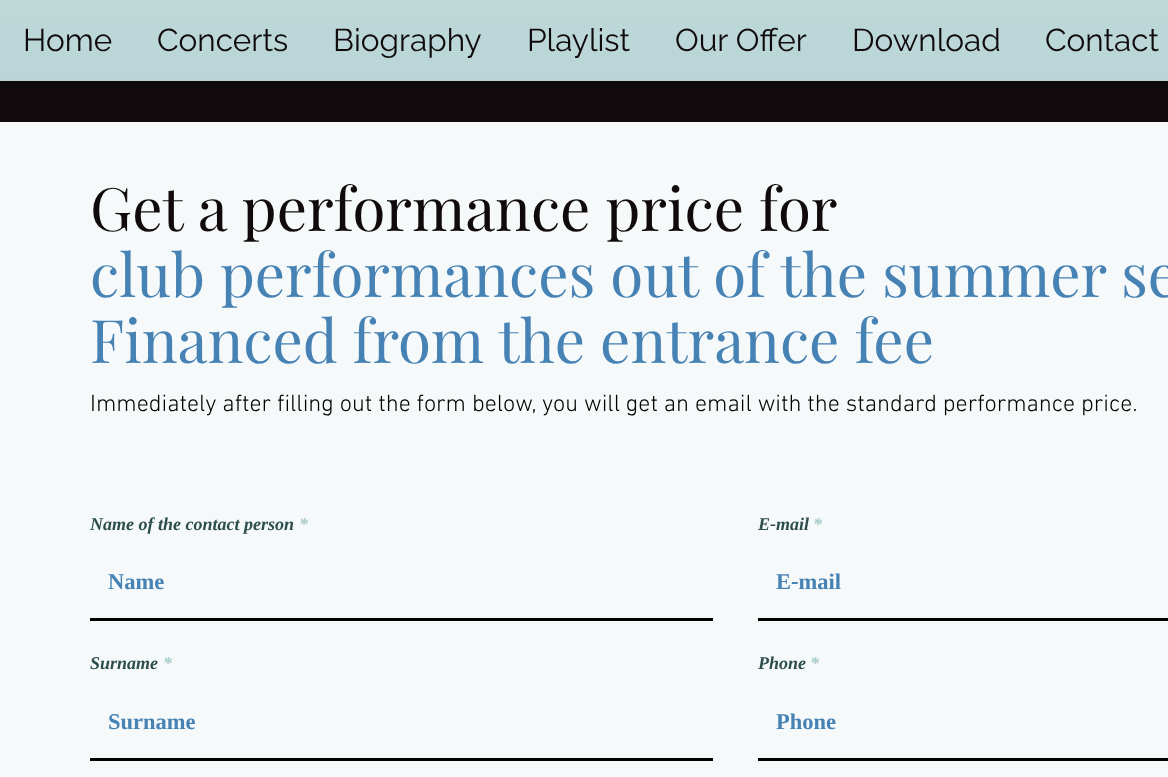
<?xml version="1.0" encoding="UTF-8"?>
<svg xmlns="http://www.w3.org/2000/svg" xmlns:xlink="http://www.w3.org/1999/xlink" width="1168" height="777">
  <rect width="100%" height="100%" fill="#100a0c" />
  <rect width="1168" height="81" fill="#a8cbcb" />
  <image x="0" y="0" width="1168" height="81" xlink:href="image1.png" />
  <rect y="122" width="1168" height="655" fill="#f5f9f9" />
  <rect x="90" y="618" width="623" height="3" fill="#000000" />
  <rect x="758" y="618" width="410" height="3" fill="#000000" />
  <rect x="90" y="758" width="623" height="3" fill="#000000" />
  <rect x="758" y="758" width="410" height="3" fill="#000000" />
  <text x="23" y="51" style="font-family: Raleway; font-size: 31.5px; fill: #100a0c">Home</text>
  <text x="157" y="51" style="font-family: Raleway; font-size: 31.5px; fill: #100a0c">Concerts</text>
  <text x="333" y="51" style="font-family: Raleway; font-size: 31.5px; fill: #100a0c">Biography</text>
  <text x="527" y="51" style="font-family: Raleway; font-size: 31.5px; fill: #100a0c">Playlist</text>
  <text x="675" y="51" style="font-family: Raleway; font-size: 31.5px; fill: #100a0c">Our Offer</text>
  <text x="852" y="51" style="font-family: Raleway; font-size: 31.5px; fill: #100a0c">Download</text>
  <text x="1045" y="51" style="font-family: Raleway; font-size: 31.5px; fill: #100a0c">Contact</text>
  <text x="90" y="231" style="font-family: Playfair Display; font-size: 60px; fill: #100a0c">Get a performance price for</text>
  <text x="90" y="297" style="font-family: Playfair Display; font-size: 60px; fill: #4682b4">club performances out of the summer se</text>
  <text x="90" y="363" style="font-family: Playfair Display; font-size: 60px; fill: #4682b4">Financed from the entrance fee</text>
  <text x="90" y="411" style="font-family: 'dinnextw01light'; font-size: 24px; font-weight: 300; fill: #000000">Immediately after filling out the form below, you will get an email with the standard performance price.</text>
  <text x="90" y="530" style="font-family: Liberation Serif; font-size: 18px; font-weight: bold; font-style: italic; fill: #2e4d4d">Name of the contact person</text>
  <text x="299" y="530" style="font-family: Liberation Serif; font-size: 18px; font-weight: bold; font-style: italic; fill: #a8cbcb">*</text>
  <text x="108" y="589" style="font-family: Liberation Serif; font-size: 22.5px; font-weight: bold; fill: #4682b4">Name</text>
  <text x="758" y="530" style="font-family: Liberation Serif; font-size: 18px; font-weight: bold; font-style: italic; fill: #2e4d4d">E‑mail</text>
  <text x="813" y="530" style="font-family: Liberation Serif; font-size: 18px; font-weight: bold; font-style: italic; fill: #a8cbcb">*</text>
  <text x="776" y="589" style="font-family: Liberation Serif; font-size: 22.5px; font-weight: bold; fill: #4682b4">E‑mail</text>
  <text x="90" y="669" style="font-family: Liberation Serif; font-size: 18px; font-weight: bold; font-style: italic; fill: #2e4d4d">Surname</text>
  <text x="163" y="669" style="font-family: Liberation Serif; font-size: 18px; font-weight: bold; font-style: italic; fill: #a8cbcb">*</text>
  <text x="108" y="729" style="font-family: Liberation Serif; font-size: 22.5px; font-weight: bold; fill: #4682b4">Surname</text>
  <text x="758" y="669" style="font-family: Liberation Serif; font-size: 18px; font-weight: bold; font-style: italic; fill: #2e4d4d">Phone</text>
  <text x="810" y="669" style="font-family: Liberation Serif; font-size: 18px; font-weight: bold; font-style: italic; fill: #a8cbcb">*</text>
  <text x="776" y="729" style="font-family: Liberation Serif; font-size: 22.5px; font-weight: bold; fill: #4682b4">Phone</text>
</svg>
